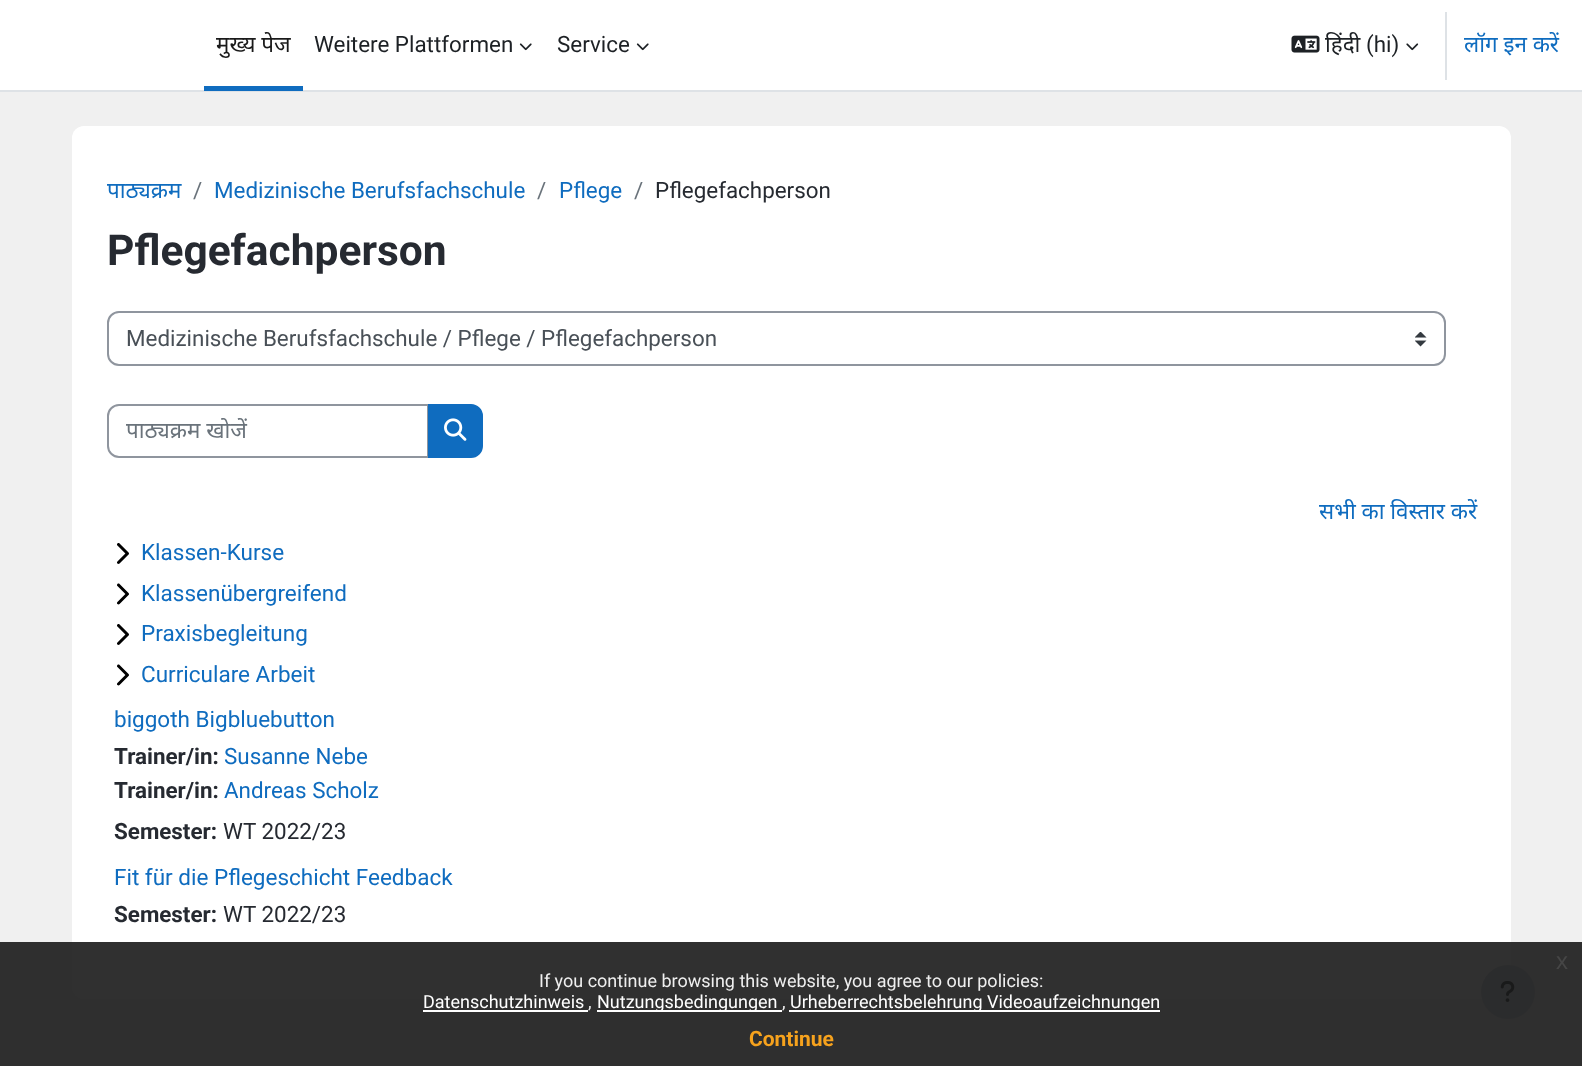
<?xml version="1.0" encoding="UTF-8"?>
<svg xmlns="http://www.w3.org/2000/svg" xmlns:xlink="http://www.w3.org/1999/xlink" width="1582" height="1066">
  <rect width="100%" height="100%" fill="#f0f0f0" />
  <rect width="1582" height="90" fill="#ffffff" />
  <rect y="90" width="1582" height="2" fill="#dee2e6" />
  <rect x="204" y="86" width="99" height="5" fill="#0f6cbf" />
  <image x="519" y="43" width="13" height="8" xlink:href="image1.png" />
  <image x="636" y="43" width="13" height="8" xlink:href="image1.png" />
  <image x="1291" y="35" width="29" height="18" xlink:href="image2.png" />
  <image x="1406" y="43" width="13" height="8" xlink:href="image3.png" />
  <rect x="1445" y="12" width="2" height="68" fill="#dee2e6" />
  <rect x="72" y="126" width="1439" height="873" rx="12" fill="#ffffff" />
  <image x="1415" y="332" width="12" height="15" xlink:href="image4.png" />
  <rect x="108" y="312" width="1337" height="53" rx="11" fill="none" stroke="#8f959e" stroke-width="2" />
  <path d="M 119 405 h 309 v 52 h -309 c -6 0 -11 -5 -11 -11 v -30 c 0 -6 5 -11 11 -11 z" fill="none" stroke="#8f959e" stroke-width="2" />
  <path d="M 429 405 h 42 c 6 0 11 5 11 11 v 30 c 0 6 -5 11 -11 11 h -42 z" fill="#0f6cbf" stroke="#0f6cbf" stroke-width="2" />
  <image x="444" y="418" width="23" height="23" xlink:href="image5.png" />
  <image x="117" y="543" width="12" height="21" xlink:href="image6.png" />
  <image x="117" y="583" width="12" height="22" xlink:href="image7.png" />
  <image x="117" y="624" width="12" height="21" xlink:href="image6.png" />
  <image x="117" y="664" width="12" height="22" xlink:href="image7.png" />
  <circle cx="1508" cy="992" r="27" fill="#ced4da" />
  <image x="1500" y="981" width="15" height="21" xlink:href="image8.png" />
  <rect y="942" width="1582" height="124" fill="#191919" fill-opacity="0.9" />
  <rect x="423" y="1010" width="165" height="2" fill="#ffffff" />
  <rect x="597" y="1010" width="185" height="2" fill="#ffffff" />
  <rect x="789" y="1010" width="371" height="2" fill="#ffffff" />
  <text x="216" y="52" style="font-family: Noto Sans; font-size: 22.4px; fill: #1a1a1a">मुख्य पेज</text>
  <text x="314" y="52" style="font-family: Roboto; font-size: 22.4px; fill: #1d2125">Weitere Plattformen</text>
  <text x="557" y="52" style="font-family: Roboto; font-size: 22.4px; fill: #1d2125">Service</text>
  <text x="1325" y="52" style="font-family: Noto Sans; font-size: 22.4px; fill: #1d2125">हिंदी </text>
  <text x="1366" y="52" style="font-family: Roboto; font-size: 22.4px; fill: #1d2125">(hi)</text>
  <text x="1464" y="52" style="font-family: Noto Sans; font-size: 22.4px; fill: #0f6cbf">लॉग इन करें</text>
  <text x="107" y="198" style="font-family: Noto Sans; font-size: 22.4px; fill: #0f6cbf">पाठ्यक्रम</text>
  <text x="193" y="198" style="font-family: Roboto; font-size: 22.4px; fill: #6a737b">/</text>
  <text x="214" y="198" style="font-family: Roboto; font-size: 22.4px; fill: #0f6cbf">Medizinische Berufsfachschule</text>
  <text x="537" y="198" style="font-family: Roboto; font-size: 22.4px; fill: #6a737b">/</text>
  <text x="559" y="198" style="font-family: Roboto; font-size: 22.4px; fill: #0f6cbf">Pflege</text>
  <text x="634" y="198" style="font-family: Roboto; font-size: 22.4px; fill: #6a737b">/</text>
  <text x="655" y="198" style="font-family: Roboto; font-size: 22.4px; fill: #262a31">Pflegefachperson</text>
  <text x="107" y="265" style="font-family: Roboto; font-size: 42.5px; font-weight: bold; fill: #262a31">Pflegefachperson</text>
  <text x="126" y="346" style="font-family: Roboto; font-size: 22.4px; fill: #495057">Medizinische Berufsfachschule / Pflege / Pflegefachperson</text>
  <text x="126" y="438" style="font-family: Noto Sans; font-size: 22.4px; fill: #6a737b">पाठ्यक्रम खोजें</text>
  <text x="1319" y="519" style="font-family: Noto Sans; font-size: 22.4px; fill: #0f6cbf">सभी का विस्तार करें</text>
  <text x="141" y="560" style="font-family: Roboto; font-size: 22.5px; fill: #0f6cbf">Klassen-Kurse</text>
  <text x="141" y="601" style="font-family: Roboto; font-size: 22.5px; fill: #0f6cbf">Klassenübergreifend</text>
  <text x="141" y="641" style="font-family: Roboto; font-size: 22.5px; fill: #0f6cbf">Praxisbegleitung</text>
  <text x="141" y="682" style="font-family: Roboto; font-size: 22.5px; fill: #0f6cbf">Curriculare Arbeit</text>
  <text x="114" y="727" style="font-family: Roboto; font-size: 22.5px; fill: #0f6cbf">biggoth Bigbluebutton</text>
  <text x="114" y="764" style="font-family: Roboto; font-size: 22.4px; font-weight: bold; fill: #262a31">Trainer/in:</text>
  <text x="224" y="764" style="font-family: Roboto; font-size: 22.4px; fill: #0f6cbf">Susanne Nebe</text>
  <text x="114" y="798" style="font-family: Roboto; font-size: 22.4px; font-weight: bold; fill: #262a31">Trainer/in:</text>
  <text x="224" y="798" style="font-family: Roboto; font-size: 22.4px; fill: #0f6cbf">Andreas Scholz</text>
  <text x="114" y="839" style="font-family: Roboto; font-size: 22.4px; font-weight: bold; fill: #262a31">Semester:</text>
  <text x="223" y="839" style="font-family: Roboto; font-size: 22.4px; fill: #262a31">WT 2022/23</text>
  <text x="114" y="885" style="font-family: Roboto; font-size: 22.5px; fill: #0f6cbf">Fit für die Pflegeschicht Feedback</text>
  <text x="114" y="922" style="font-family: Roboto; font-size: 22.4px; font-weight: bold; fill: #262a31">Semester:</text>
  <text x="223" y="922" style="font-family: Roboto; font-size: 22.4px; fill: #262a31">WT 2022/23</text>
  <text x="1556" y="969" style="font-family: Liberation Sans; font-size: 24px; fill: #464646">x</text>
  <text x="539" y="987" style="font-family: Roboto; font-size: 18px; fill: #efefef">If you continue browsing this website, you agree to our policies:</text>
  <text x="423" y="1008" style="font-family: Roboto; font-size: 18px; fill: #ffffff">Datenschutzhinweis</text>
  <text x="588" y="1008" style="font-family: Roboto; font-size: 18px; fill: #efefef">,</text>
  <text x="597" y="1008" style="font-family: Roboto; font-size: 18px; fill: #ffffff">Nutzungsbedingungen</text>
  <text x="782" y="1008" style="font-family: Roboto; font-size: 18px; fill: #efefef">,</text>
  <text x="790" y="1008" style="font-family: Roboto; font-size: 18px; fill: #ffffff">Urheberrechtsbelehrung Videoaufzeichnungen</text>
  <text x="749" y="1046" style="font-family: Roboto; font-size: 21px; font-weight: bold; fill: #f6a21d">Continue</text>
</svg>
